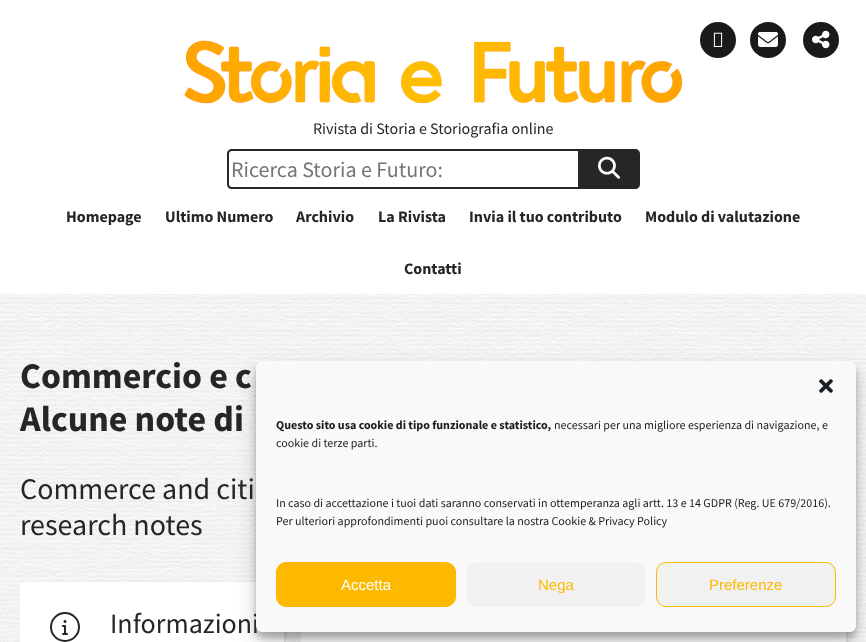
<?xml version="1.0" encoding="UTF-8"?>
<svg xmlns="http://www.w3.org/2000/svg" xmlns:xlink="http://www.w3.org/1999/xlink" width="866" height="642">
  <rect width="100%" height="100%" fill="#ffffff" />
  <circle cx="718" cy="40" r="19" fill="#1a1a1a" stroke="#ffffff" stroke-width="2" />
  <image x="713" y="32" width="10" height="15" xlink:href="image1.png" />
  <circle cx="768" cy="40" r="19" fill="#1a1a1a" stroke="#ffffff" stroke-width="2" />
  <image x="758" y="32" width="20" height="15" xlink:href="image2.png" />
  <circle cx="821" cy="40" r="19" fill="#1a1a1a" stroke="#ffffff" stroke-width="2" />
  <image x="812" y="30" width="18" height="19" xlink:href="image3.png" />
  <image x="184" y="40" width="499" height="64" xlink:href="image4.png" />
  <path d="M 232 149 h 346 v 40 h -346 c -3 0 -5 -2 -5 -5 v -30 c 0 -3 2 -5 5 -5 z m 0 2 h 346 v 36 h -346 c -2 0 -3 -1 -3 -3 v -30 c 0 -2 1 -3 3 -3 z" fill="#262626" fill-rule="evenodd" />
  <path d="M 578 149 h 57 c 3 0 5 2 5 5 v 30 c 0 3 -2 5 -5 5 h -57 z" fill="#262626" />
  <image x="598" y="156" width="22" height="23" xlink:href="image5.png" />
  <image x="0" y="294" width="866" height="348" xlink:href="image6.png" />
  <rect x="25" y="587" width="258" height="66" rx="2" fill="#000000" fill-opacity="0.2" filter="blur(3px)" />
  <rect x="20" y="582" width="264" height="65" rx="5" fill="#ffffff" />
  <circle cx="65" cy="627" r="14" fill="none" stroke="#262626" stroke-width="2" />
  <image x="62" y="620" width="6" height="15" xlink:href="image7.png" />
  <rect x="306" y="587" width="539" height="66" rx="2" fill="#000000" fill-opacity="0.2" filter="blur(3px)" />
  <rect x="301" y="632" width="545" height="10" fill="#ffffff" />
  <rect x="256" y="367" width="600" height="271" rx="6" fill="#000000" fill-opacity="0.23" filter="blur(3px)" />
  <rect x="256" y="371" width="600" height="271" rx="6" fill="#000000" fill-opacity="0.19" filter="blur(10px)" />
  <text x="313" y="134" style="font-family: Source Sans Pro; font-size: 16px; fill: #262626">Rivista di Storia e Storiografia online</text>
  <text x="231" y="177" style="font-family: Source Sans Pro; font-size: 22px; fill: #757575">Ricerca Storia e Futuro:</text>
  <text x="66" y="222" style="font-family: Source Sans Pro; font-size: 16px; font-weight: bold; fill: #262626">Homepage</text>
  <text x="165" y="222" style="font-family: Source Sans Pro; font-size: 16px; font-weight: bold; fill: #262626">Ultimo Numero</text>
  <text x="296" y="222" style="font-family: Source Sans Pro; font-size: 16px; font-weight: bold; fill: #262626">Archivio</text>
  <text x="378" y="222" style="font-family: Source Sans Pro; font-size: 16px; font-weight: bold; fill: #262626">La Rivista</text>
  <text x="469" y="222" style="font-family: Source Sans Pro; font-size: 16px; font-weight: bold; fill: #262626">Invia il tuo contributo</text>
  <text x="645" y="222" style="font-family: Source Sans Pro; font-size: 16px; font-weight: bold; fill: #262626">Modulo di valutazione</text>
  <text x="404" y="274" style="font-family: Source Sans Pro; font-size: 16px; font-weight: bold; fill: #262626">Contatti</text>
  <text x="20" y="388" style="font-family: Source Sans Pro; font-size: 36px; font-weight: bold; fill: #262626">Commercio e c</text>
  <text x="20" y="431" style="font-family: Source Sans Pro; font-size: 36px; font-weight: bold; fill: #262626">Alcune note di</text>
  <text x="20" y="499" style="font-family: Source Sans Pro; font-size: 30px; fill: #262626">Commerce and citi</text>
  <text x="20" y="535" style="font-family: Source Sans Pro; font-size: 30px; fill: #262626">research notes</text>
  <text x="110" y="633" style="font-family: Source Sans Pro; font-size: 28px; fill: #262626">Informazioni</text>
  <rect x="256" y="361" width="600" height="271" rx="6" fill="#f9f9f9" />
  <image x="819" y="379" width="14" height="14" xlink:href="image8.png" />
  <text x="276" y="429" style="font-family: Source Sans Pro; font-size: 12px; font-weight: bold; fill: #191e23">Questo sito usa cookie di tipo funzionale e statistico,</text>
  <text x="554" y="429" style="font-family: Source Sans Pro; font-size: 12px; fill: #191e23">necessari per una migliore esperienza di navigazione, e</text>
  <text x="276" y="447" style="font-family: Source Sans Pro; font-size: 12px; fill: #191e23">cookie di terze parti.</text>
  <text x="276" y="507" style="font-family: Source Sans Pro; font-size: 12px; fill: #191e23">In caso di accettazione i tuoi dati saranno conservati in ottemperanza agli artt. 13 e 14 GDPR (Reg. UE 679/2016).</text>
  <text x="276" y="525" style="font-family: Source Sans Pro; font-size: 12px; fill: #191e23">Per ulteriori approfondimenti puoi consultare la nostra Cookie &amp; Privacy Policy</text>
  <rect x="276.5" y="562.5" width="179" height="44" rx="9.5" fill="#fcb900" stroke="#fcb900" />
  <text x="341" y="590" style="font-family: Liberation Sans; font-size: 15px; fill: #ffffff">Accetta</text>
  <rect x="466" y="562" width="180" height="45" rx="10" fill="#f1f1f1" />
  <text x="538" y="590" style="font-family: Liberation Sans; font-size: 15px; fill: #fcb900">Nega</text>
  <rect x="656.5" y="562.5" width="179" height="44" rx="9.5" fill="#f1f1f1" stroke="#fcb900" />
  <text x="709" y="590" style="font-family: Liberation Sans; font-size: 15px; fill: #fcb900">Preferenze</text>
</svg>
